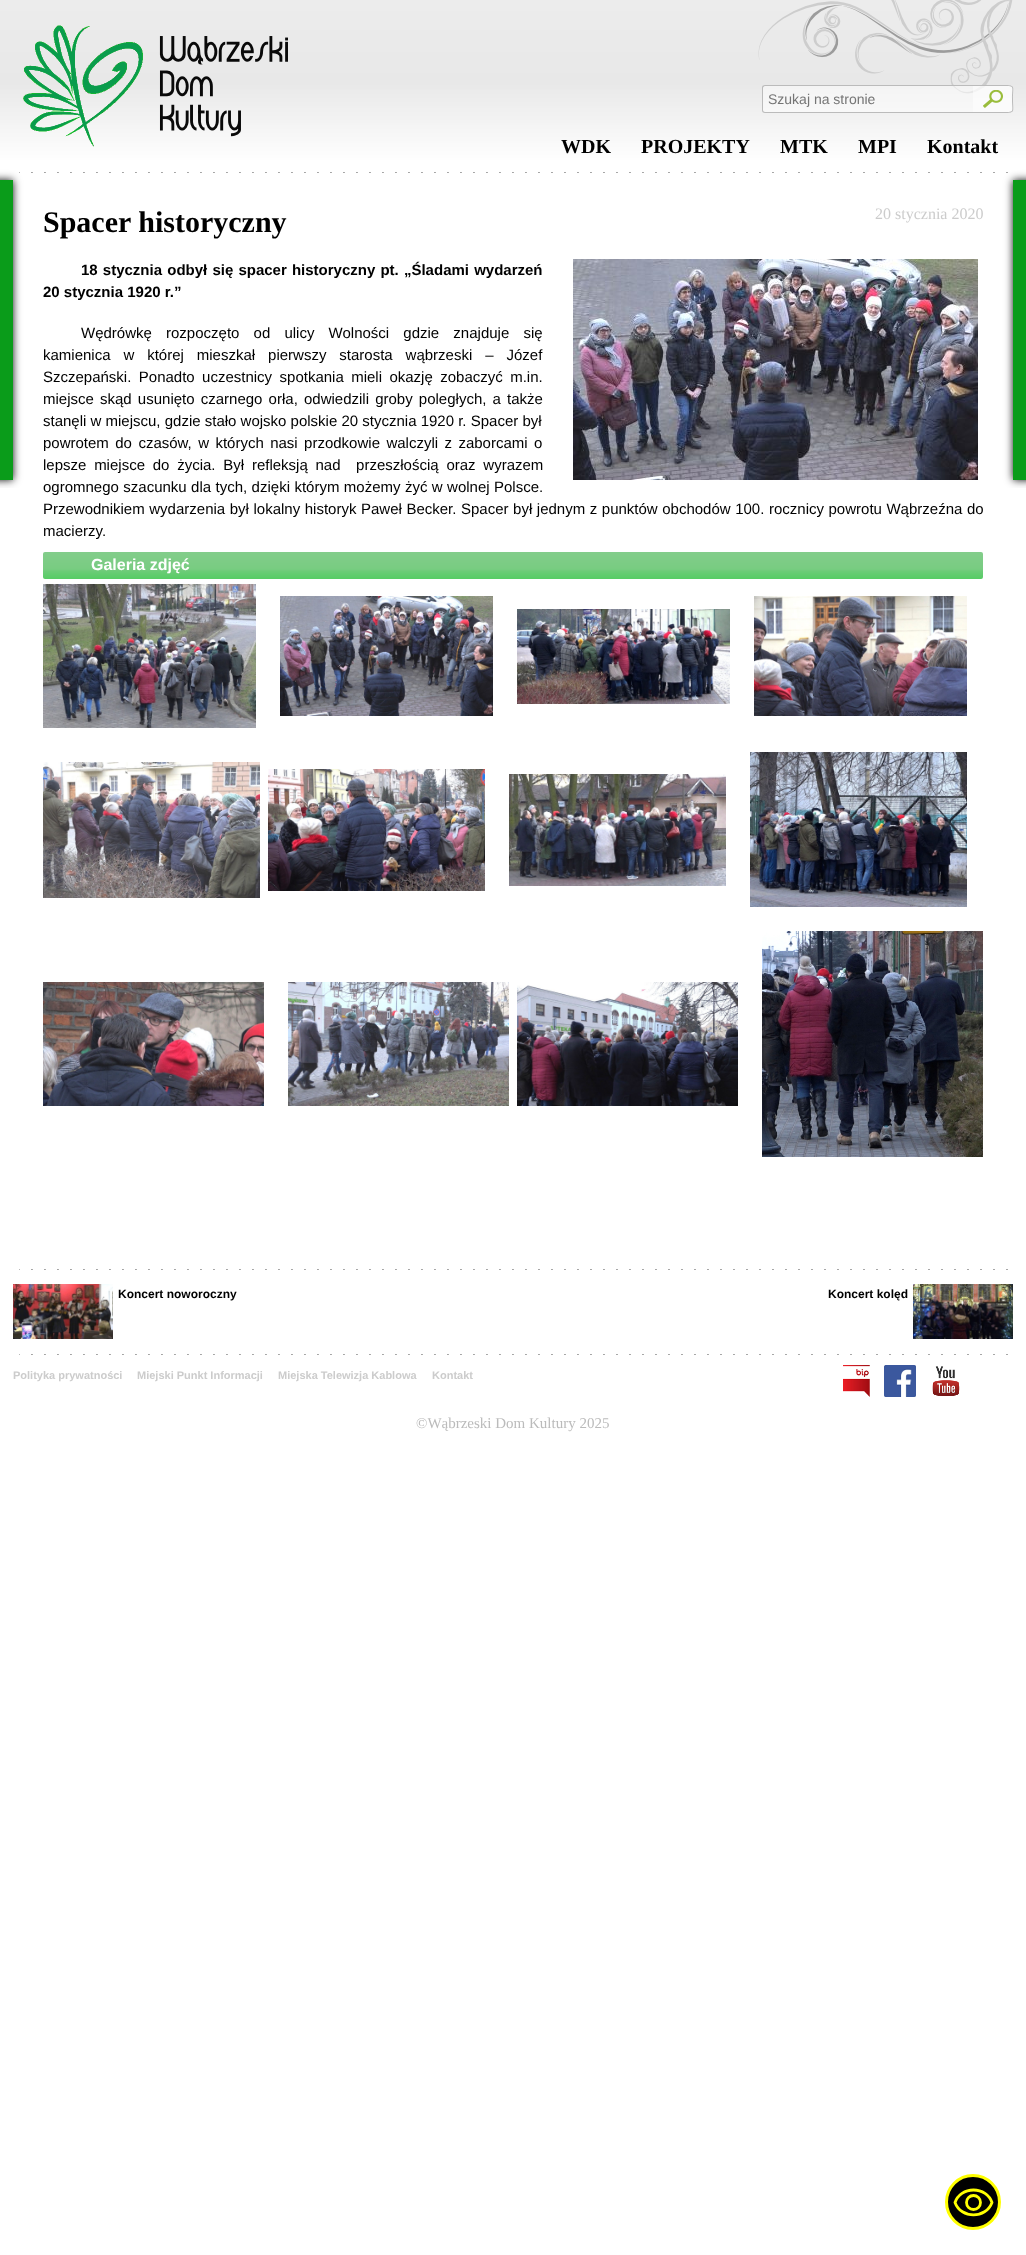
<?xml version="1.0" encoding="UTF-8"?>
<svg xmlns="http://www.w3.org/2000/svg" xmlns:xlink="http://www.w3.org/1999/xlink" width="1026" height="2255">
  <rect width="100%" height="100%" fill="#ffffff" />
  <image x="0" y="0" width="1026" height="488" xlink:href="image1.png" />
  <image x="23" y="25" width="265" height="122" xlink:href="image2.png" />
  <path d="M 765 85 h 208 v 28 h -208 c -1.5 0 -3 -1.5 -3 -3 v -22 c 0 -1.5 1.5 -3 3 -3 z" fill="#ffffff" fill-opacity="0.5" />
  <path d="M 765 85 h 208 v 28 h -208 c -2 0 -3 -1 -3 -3 v -22 c 0 -2 1 -3 3 -3 z m 0 1 h 208 v 26 h -208 c -1 0 -2 -1 -2 -2 v -22 c 0 -1 1 -2 2 -2 z" fill="#bbbbbb" fill-rule="evenodd" />
  <path d="M 973 85 h 37 c 1.5 0 3 1.5 3 3 v 22 c 0 1.5 -1.5 3 -3 3 h -37 z" fill="#ffffff" fill-opacity="0.75" />
  <image x="983" y="90" width="20" height="18" xlink:href="image3.png" />
  <path d="M 973 85 h 31 c 12 0 9 1 9 14 c 0 13 3 14 -9 14 h -31 z m 0 1 h 31 c 11 0 8 0 8 13 c 0 13 3 13 -8 13 h -31 z" fill="#bbbbbb" fill-rule="evenodd" />
  <image x="19" y="172" width="989" height="1" xlink:href="image4.png" />
  <image x="573" y="259" width="405" height="221" xlink:href="image5.png" />
  <image x="43" y="552" width="940" height="27" xlink:href="image6.png" />
  <image x="43" y="584" width="213" height="144" xlink:href="image7.png" />
  <image x="280" y="596" width="213" height="120" xlink:href="image8.png" />
  <image x="517" y="609" width="213" height="95" xlink:href="image9.png" />
  <image x="754" y="596" width="213" height="120" xlink:href="image10.png" />
  <image x="43" y="762" width="217" height="136" xlink:href="image11.png" />
  <image x="268" y="769" width="217" height="122" xlink:href="image12.png" />
  <image x="509" y="774" width="217" height="112" xlink:href="image13.png" />
  <image x="750" y="752" width="217" height="155" xlink:href="image14.png" />
  <image x="43" y="982" width="221" height="124" xlink:href="image15.png" />
  <image x="288" y="982" width="221" height="124" xlink:href="image16.png" />
  <image x="517" y="982" width="221" height="124" xlink:href="image17.png" />
  <image x="762" y="931" width="221" height="226" xlink:href="image18.png" />
  <image x="19" y="1269" width="989" height="1" xlink:href="image4.png" />
  <image x="13" y="1284" width="100" height="55" xlink:href="image19.png" />
  <image x="913" y="1284" width="100" height="55" xlink:href="image20.png" />
  <image x="19" y="1354" width="989" height="1" xlink:href="image4.png" />
  <image x="843" y="1365" width="27" height="32" xlink:href="image21.png" />
  <image x="884" y="1365" width="32" height="32" xlink:href="image22.png" />
  <image x="932" y="1366" width="28" height="30" xlink:href="image23.png" />
  <circle cx="973" cy="2202" r="26.5" fill="#000000" stroke="#ffff00" stroke-width="3" />
  <path d="M 973.5 2190 c -8.5 0 -16 5 -18.5 12.5 c 6 16.5 31 16.5 37 0 c -2.5 -7.5 -10 -12.5 -18.5 -12.5 z" fill="none" stroke="#ffff00" stroke-width="2.8" stroke-linecap="round" stroke-linejoin="round" />
  <circle cx="973.5" cy="2202.5" r="7" fill="none" stroke="#ffff00" stroke-width="2.8" />
  <text x="768" y="104" style="font-family: Liberation Sans; font-size: 14px; fill: #757575">Szukaj na stronie</text>
  <text x="561" y="153" style="font-family: Liberation Serif; font-size: 20px; font-weight: bold; fill: #000000">WDK</text>
  <text x="641" y="153" style="font-family: Liberation Serif; font-size: 20px; font-weight: bold; fill: #000000">PROJEKTY</text>
  <text x="780" y="153" style="font-family: Liberation Serif; font-size: 20px; font-weight: bold; fill: #000000">MTK</text>
  <text x="858" y="153" style="font-family: Liberation Serif; font-size: 20px; font-weight: bold; fill: #000000">MPI</text>
  <text x="927" y="153" style="font-family: Liberation Serif; font-size: 20px; font-weight: bold; fill: #000000">Kontakt</text>
  <text x="43" y="232" style="font-family: Liberation Serif; font-size: 30px; font-weight: bold; fill: #000000">Spacer historyczny</text>
  <text x="875" y="219" style="font-family: Liberation Serif; font-size: 16px; fill: #cccccc">20 stycznia 2020</text>
  <text x="81" y="275" word-spacing="1" style="font-family: Liberation Sans; font-size: 15px; font-weight: bold; fill: #000000">18 stycznia odbył się spacer historyczny pt. „Śladami wydarzeń</text>
  <text x="43" y="297" style="font-family: Liberation Sans; font-size: 15px; font-weight: bold; fill: #000000">20 stycznia 1920 r.”</text>
  <text x="81" y="338" word-spacing="10" style="font-family: Liberation Sans; font-size: 15px; fill: #000000">Wędrówkę rozpoczęto od ulicy Wolności gdzie znajduje się</text>
  <text x="43" y="360" word-spacing="8.75" style="font-family: Liberation Sans; font-size: 15px; fill: #000000">kamienica w której mieszkał pierwszy starosta wąbrzeski – Józef</text>
  <text x="43" y="382" word-spacing="3.25" style="font-family: Liberation Sans; font-size: 15px; fill: #000000">Szczepański. Ponadto uczestnicy spotkania mieli okazję zobaczyć m.in.</text>
  <text x="43" y="404" word-spacing="2" style="font-family: Liberation Sans; font-size: 15px; fill: #000000">miejsce skąd usunięto czarnego orła, odwiedzili groby poległych, a także</text>
  <text x="43" y="426" style="font-family: Liberation Sans; font-size: 15px; fill: #000000">stanęli w miejscu, gdzie stało wojsko polskie 20 stycznia 1920 r. Spacer był</text>
  <text x="43" y="448" word-spacing="2.25" style="font-family: Liberation Sans; font-size: 15px; fill: #000000">powrotem do czasów, w których nasi przodkowie walczyli z zaborcami o</text>
  <text x="43" y="470" word-spacing="3.6" style="font-family: Liberation Sans; font-size: 15px; fill: #000000" xml:space="preserve">lepsze miejsce do życia. Był refleksją nad  przeszłością oraz wyrazem</text>
  <text x="43" y="492" word-spacing="0.25" style="font-family: Liberation Sans; font-size: 15px; fill: #000000">ogromnego szacunku dla tych, dzięki którym możemy żyć w wolnej Polsce.</text>
  <text x="43" y="514" word-spacing="0.4" style="font-family: Liberation Sans; font-size: 15px; fill: #000000">Przewodnikiem wydarzenia był lokalny historyk Paweł Becker. Spacer był jednym z punktów obchodów 100. rocznicy powrotu Wąbrzeźna do</text>
  <text x="43" y="536" style="font-family: Liberation Sans; font-size: 15px; fill: #000000">macierzy.</text>
  <text x="91" y="570" style="font-family: Liberation Sans; font-size: 16px; font-weight: bold; fill: #ffffff">Galeria zdjęć</text>
  <text x="118" y="1298" style="font-family: Liberation Sans; font-size: 12px; font-weight: bold; fill: #000000">Koncert noworoczny</text>
  <text x="828" y="1298" style="font-family: Liberation Sans; font-size: 12px; font-weight: bold; fill: #000000">Koncert kolęd</text>
  <text x="13" y="1379" style="font-family: Liberation Sans; font-size: 11px; font-weight: bold; fill: #cccccc">Polityka prywatności</text>
  <text x="137" y="1379" style="font-family: Liberation Sans; font-size: 11px; font-weight: bold; fill: #cccccc">Miejski Punkt Informacji</text>
  <text x="278" y="1379" style="font-family: Liberation Sans; font-size: 11px; font-weight: bold; fill: #cccccc">Miejska Telewizja Kablowa</text>
  <text x="432" y="1379" style="font-family: Liberation Sans; font-size: 11px; font-weight: bold; fill: #cccccc">Kontakt</text>
  <text x="416" y="1428" style="font-family: Liberation Serif; font-size: 15px; fill: #bbbbbb">©Wąbrzeski Dom Kultury 2025</text>
</svg>
